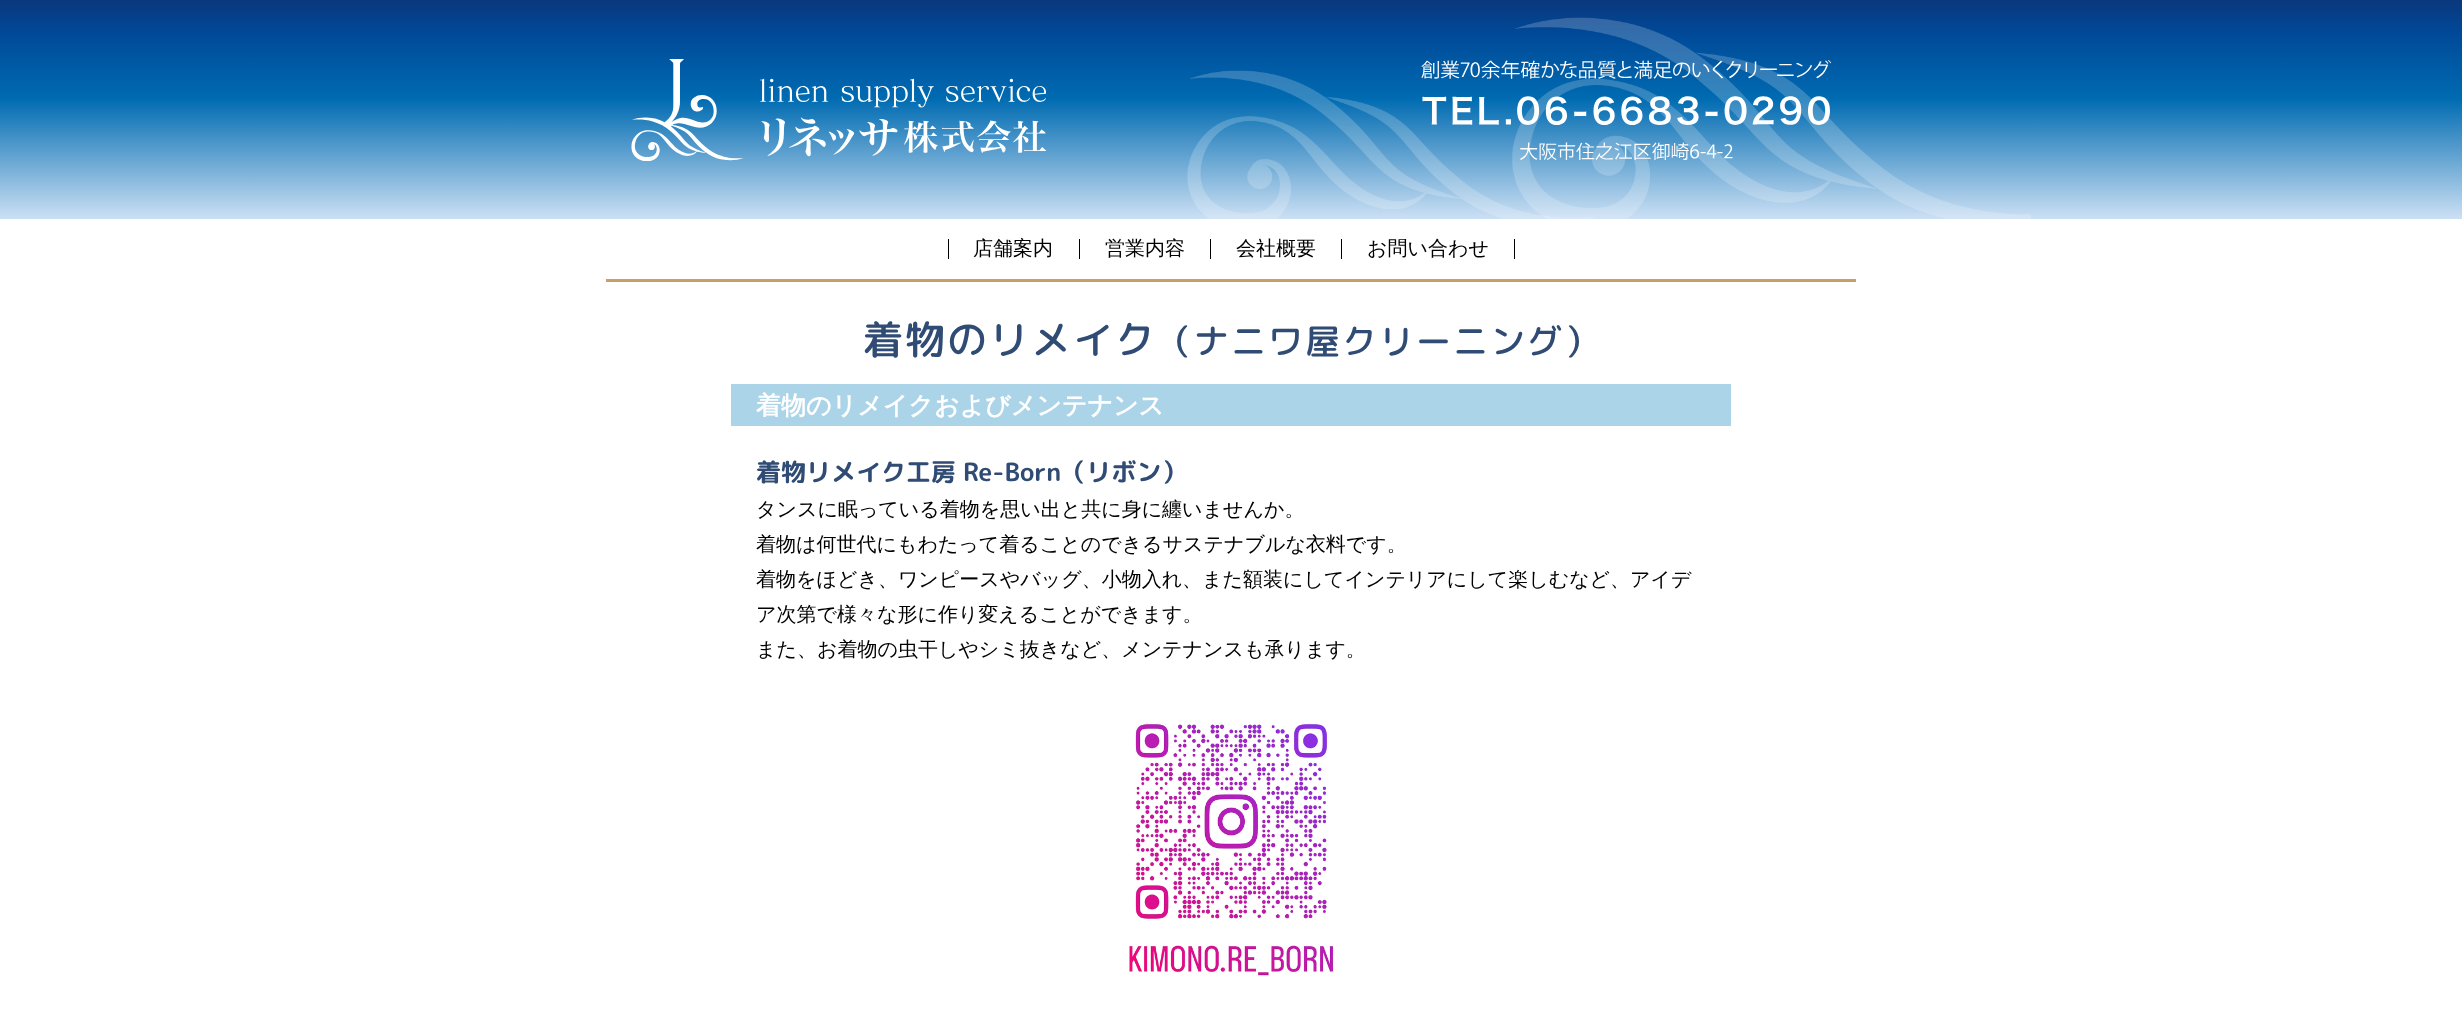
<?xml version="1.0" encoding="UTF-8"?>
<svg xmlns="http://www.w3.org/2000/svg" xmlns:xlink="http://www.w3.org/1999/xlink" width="2462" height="1011">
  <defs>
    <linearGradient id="g1" gradientUnits="userSpaceOnUse" x1="1231" y1="0" x2="1231" y2="219"><stop offset="0" stop-color="#0b377d" /><stop offset="0.15" stop-color="#004998" /><stop offset="0.45" stop-color="#006bb1" /><stop offset="1" stop-color="#cce0f4" /></linearGradient>
  </defs>
  <rect width="100%" height="100%" fill="#ffffff" />
  <rect width="2462" height="219" fill="url(#g1)" />
  <image x="1187" y="17" width="844" height="202" xlink:href="image1.png" />
  <image x="631" y="59" width="415" height="102" xlink:href="image2.png" />
  <image x="1421" y="60" width="410" height="100" xlink:href="image3.png" />
  <rect x="606" y="279" width="1250" height="3" fill="#c9a063" />
  <rect x="1079" y="239" width="1" height="20" fill="#000000" />
  <rect x="948" y="239" width="1" height="20" fill="#000000" />
  <rect x="1210" y="239" width="1" height="20" fill="#000000" />
  <rect x="1341" y="239" width="1" height="20" fill="#000000" />
  <rect x="1514" y="239" width="1" height="20" fill="#000000" />
  <rect x="731" y="384" width="1000" height="42" fill="#acd4e8" />
  <image x="1129" y="724" width="205" height="252" xlink:href="image4.png" />
  <text x="973" y="255" style="font-family: WenQuanYi Zen Hei; font-size: 20px; font-weight: 500; fill: #000000">店舗案内</text>
  <text x="1105" y="255" style="font-family: WenQuanYi Zen Hei; font-size: 20px; font-weight: 500; fill: #000000">営業内容</text>
  <text x="1236" y="255" style="font-family: WenQuanYi Zen Hei; font-size: 20px; font-weight: 500; fill: #000000">会社概要</text>
  <text x="1367" y="255" style="font-family: WenQuanYi Zen Hei; font-size: 20px; font-weight: 500; fill: #000000">お問い合わせ</text>
  <text x="863" y="354" style="font-family: 'Rounded Mplus 1c'; font-size: 40px; font-weight: 500; letter-spacing: 2px; fill: #304c74">着物のリメイク</text>
  <text x="1157" y="354" style="font-family: 'Rounded Mplus 1c'; font-size: 35px; font-weight: 500; letter-spacing: 2px; fill: #304c74">（ナニワ屋クリーニング）</text>
  <text x="756" y="414" style="font-family: WenQuanYi Zen Hei; font-size: 25px; font-weight: bold; fill: #ffffff">着物のリメイクおよびメンテナンス</text>
  <text x="756" y="481" style="font-family: 'Rounded Mplus 1c Bold'; font-size: 25px; font-weight: bold; fill: #304c74">着物リメイク工房 Re-Born（リボン）</text>
  <text x="756" y="516" style="font-family: WenQuanYi Zen Hei; font-size: 20px; font-weight: 500; fill: #000000">タンスに眠っている着物を思い出と共に身に纏いませんか。</text>
  <text x="756" y="551" style="font-family: WenQuanYi Zen Hei; font-size: 20px; font-weight: 500; fill: #000000">着物は何世代にもわたって着ることのできるサステナブルな衣料です。</text>
  <text x="756" y="586" style="font-family: WenQuanYi Zen Hei; font-size: 20px; font-weight: 500; fill: #000000">着物をほどき、ワンピースやバッグ、小物入れ、また額装にしてインテリアにして楽しむなど、アイデ</text>
  <text x="756" y="621" style="font-family: WenQuanYi Zen Hei; font-size: 20px; font-weight: 500; fill: #000000">ア次第で様々な形に作り変えることができます。</text>
  <text x="756" y="656" style="font-family: WenQuanYi Zen Hei; font-size: 20px; font-weight: 500; fill: #000000">また、お着物の虫干しやシミ抜きなど、メンテナンスも承ります。</text>
</svg>
